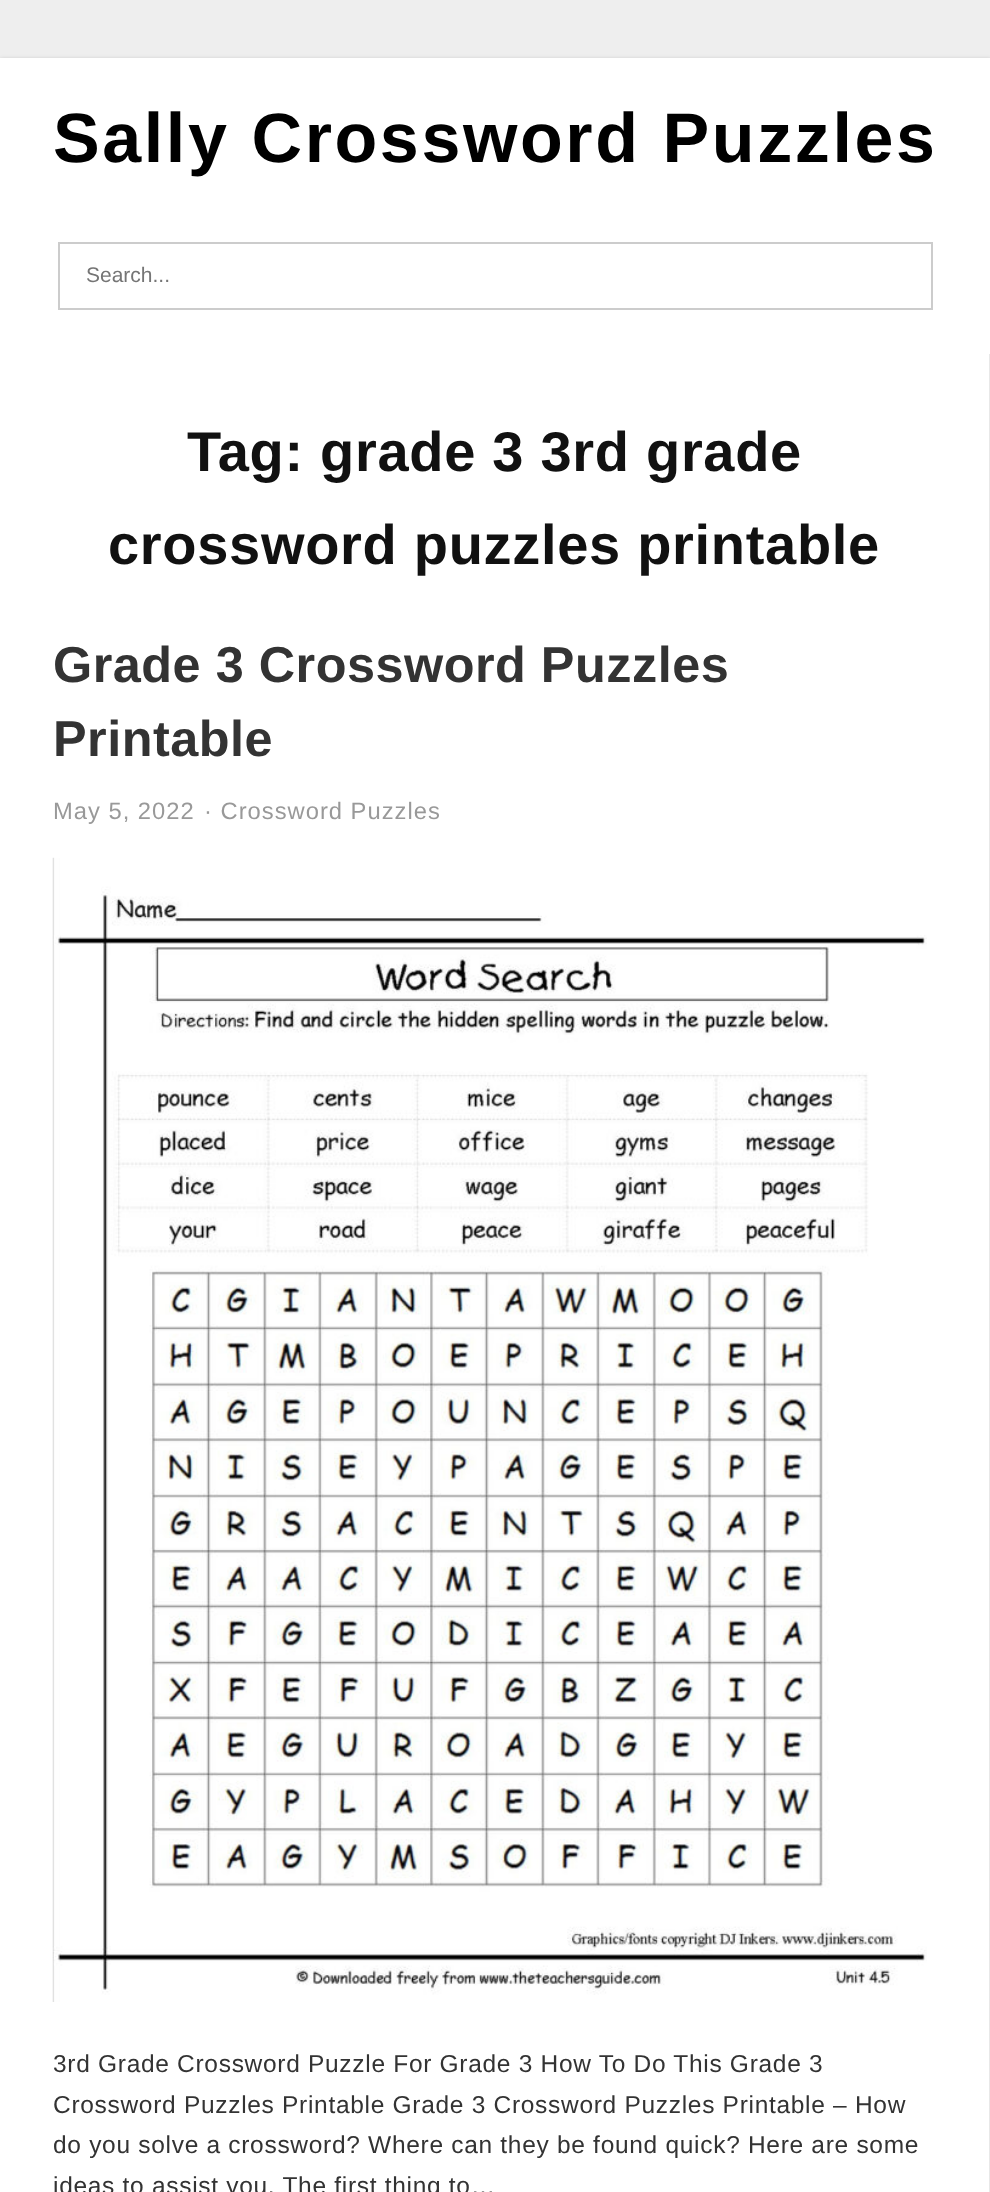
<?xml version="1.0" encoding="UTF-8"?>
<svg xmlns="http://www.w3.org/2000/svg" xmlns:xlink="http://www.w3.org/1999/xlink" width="990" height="2192">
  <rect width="100%" height="100%" fill="#eeeeee" />
  <rect y="60" width="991" height="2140" fill="#000000" fill-opacity="0.3" filter="blur(2.5px)" />
  <rect y="58" width="990" height="2134" fill="#ffffff" />
  <rect x="59" y="243" width="873" height="66" fill="none" stroke="#cccccc" stroke-width="2" />
  <rect x="989" y="354" width="1" height="1838" fill="#e8e8e8" />
  <image x="52" y="857" width="875" height="1145" xlink:href="image1.png" />
  <text x="53" y="162" style="font-family: Liberation Sans; font-size: 70px; font-weight: bold; letter-spacing: 2.6px; fill: #000000">Sally Crossword Puzzles</text>
  <text x="86" y="282" style="font-family: Liberation Sans; font-size: 21px; fill: #757575">Search...</text>
  <text x="187" y="471" style="font-family: Liberation Sans; font-size: 56px; font-weight: bold; letter-spacing: 0.7px; fill: #111111">Tag: grade 3 3rd grade</text>
  <text x="108" y="564" style="font-family: Liberation Sans; font-size: 56px; font-weight: bold; letter-spacing: 0.7px; fill: #111111">crossword puzzles printable</text>
  <text x="53" y="682" style="font-family: Liberation Sans; font-size: 50.4px; font-weight: bold; letter-spacing: 0.5px; fill: #333333">Grade 3 Crossword Puzzles</text>
  <text x="53" y="756" style="font-family: Liberation Sans; font-size: 50.4px; font-weight: bold; letter-spacing: 0.5px; fill: #333333">Printable</text>
  <text x="53" y="819" style="font-family: Liberation Sans; font-size: 23.75px; letter-spacing: 1px; fill: #999999">May 5, 2022</text>
  <text x="204" y="819" style="font-family: Liberation Sans; font-size: 23.75px; letter-spacing: 1px; fill: #999999">· Crossword Puzzles</text>
  <text x="53" y="2072" style="font-family: Liberation Sans; font-size: 24.5px; letter-spacing: 0.7px; fill: #333333">3rd Grade Crossword Puzzle For Grade 3 How To Do This Grade 3</text>
  <text x="53" y="2113" style="font-family: Liberation Sans; font-size: 24.5px; letter-spacing: 0.7px; fill: #333333">Crossword Puzzles Printable Grade 3 Crossword Puzzles Printable – How</text>
  <text x="53" y="2153" style="font-family: Liberation Sans; font-size: 24.5px; letter-spacing: 0.7px; fill: #333333">do you solve a crossword? Where can they be found quick? Here are some</text>
  <text x="53" y="2194" style="font-family: Liberation Sans; font-size: 24.5px; letter-spacing: 0.7px; fill: #333333">ideas to assist you. The first thing to…</text>
</svg>
